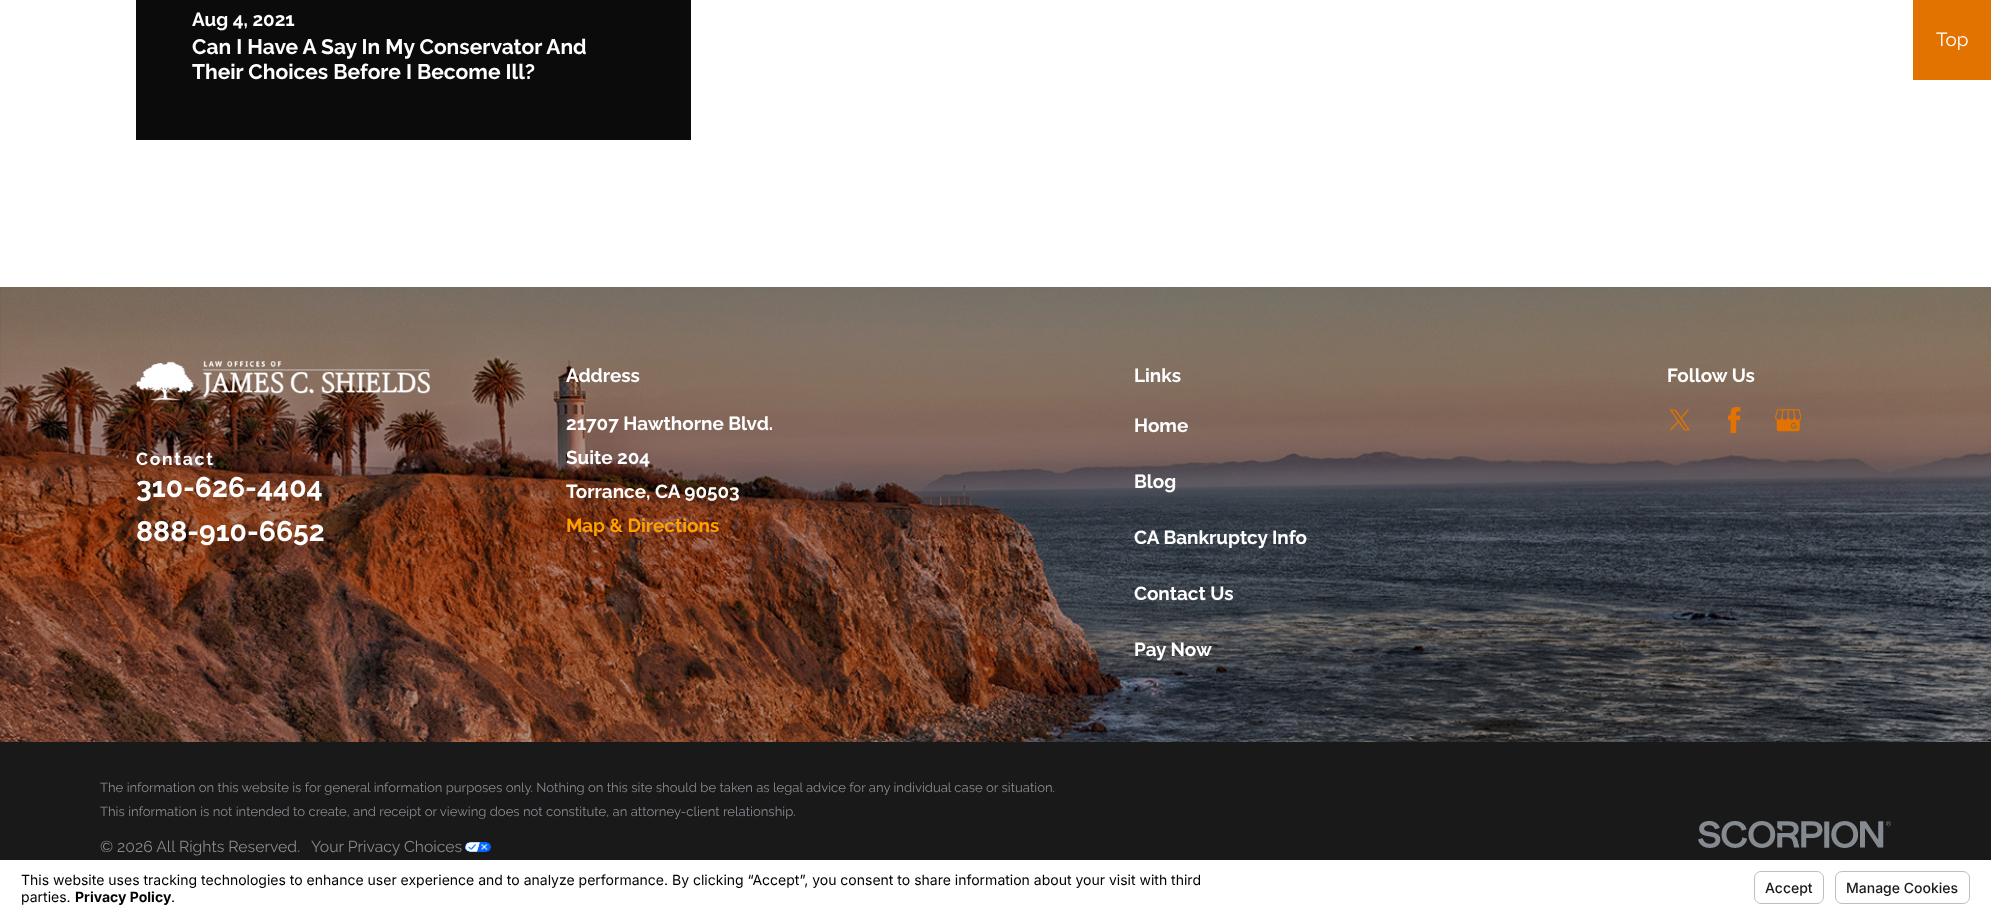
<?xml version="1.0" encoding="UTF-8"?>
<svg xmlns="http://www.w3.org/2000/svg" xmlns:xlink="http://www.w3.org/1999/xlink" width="1991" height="915">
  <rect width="100%" height="100%" fill="#ffffff" />
  <rect x="136" width="555" height="140" fill="#0b0b0b" />
  <rect x="1913" width="78" height="80" fill="#e37300" />
  <image x="0" y="287" width="1991" height="455" xlink:href="image1.png" />
  <image x="136" y="361" width="294" height="40" xlink:href="image2.png" />
  <image x="1669" y="409" width="21" height="22" xlink:href="image3.png" />
  <image x="1728" y="407" width="13" height="26" xlink:href="image4.png" />
  <image x="1775" y="409" width="26" height="23" xlink:href="image5.png" />
  <rect y="742" width="1991" height="118" fill="#191919" />
  <image x="465" y="842" width="26" height="10" xlink:href="image6.png" />
  <image x="1698" y="821" width="193" height="27" xlink:href="image7.png" />
  <rect x="1754.5" y="871.5" width="69" height="32" rx="6.5" fill="none" stroke="#bcbec7" />
  <rect x="1835.5" y="871.5" width="134" height="32" rx="6.5" fill="none" stroke="#bcbec7" />
  <text x="192" y="26" style="font-family: Raleway; font-size: 18.9px; font-weight: bold; fill: #ffffff">Aug 4, 2021</text>
  <text x="192" y="54" style="font-family: Raleway; font-size: 21px; font-weight: bold; fill: #ffffff">Can I Have A Say In My Conservator And</text>
  <text x="192" y="79" style="font-family: Raleway; font-size: 21px; font-weight: bold; fill: #ffffff">Their Choices Before I Become Ill?</text>
  <text x="1936" y="46" style="font-family: Raleway; font-size: 18.9px; fill: #ffffff">Top</text>
  <text x="136" y="465" style="font-family: Raleway; font-size: 17.5px; font-weight: bold; letter-spacing: 1.75px; fill: #ffffff">Contact</text>
  <text x="136" y="497" style="font-family: Raleway; font-size: 28.25px; font-weight: bold; fill: #ffffff">310-626-4404</text>
  <text x="136" y="541" style="font-family: Raleway; font-size: 28.25px; font-weight: bold; fill: #ffffff">888-910-6652</text>
  <text x="566" y="382" style="font-family: Raleway; font-size: 18.9px; font-weight: bold; fill: #ffffff">Address</text>
  <text x="566" y="430" style="font-family: Raleway; font-size: 18.9px; font-weight: bold; fill: #ffffff">21707 Hawthorne Blvd.</text>
  <text x="566" y="464" style="font-family: Raleway; font-size: 18.9px; font-weight: bold; fill: #ffffff">Suite 204</text>
  <text x="566" y="498" style="font-family: Raleway; font-size: 18.9px; font-weight: bold; fill: #ffffff">Torrance, CA 90503</text>
  <text x="566" y="532" style="font-family: Raleway; font-size: 18.9px; font-weight: bold; fill: #ff9f00">Map &amp; Directions</text>
  <text x="1134" y="382" style="font-family: Raleway; font-size: 18.9px; font-weight: bold; fill: #ffffff">Links</text>
  <text x="1134" y="432" style="font-family: Raleway; font-size: 18.9px; font-weight: bold; fill: #ffffff">Home</text>
  <text x="1134" y="488" style="font-family: Raleway; font-size: 18.9px; font-weight: bold; fill: #ffffff">Blog</text>
  <text x="1134" y="544" style="font-family: Raleway; font-size: 18.9px; font-weight: bold; fill: #ffffff">CA Bankruptcy Info</text>
  <text x="1134" y="600" style="font-family: Raleway; font-size: 18.9px; font-weight: bold; fill: #ffffff">Contact Us</text>
  <text x="1134" y="656" style="font-family: Raleway; font-size: 18.9px; font-weight: bold; fill: #ffffff">Pay Now</text>
  <text x="1667" y="382" style="font-family: Raleway; font-size: 18.9px; font-weight: bold; fill: #ffffff">Follow Us</text>
  <text x="100" y="792" style="font-family: Raleway; font-size: 13.1px; fill: #86898f">The information on this website is for general information purposes only. Nothing on this site should be taken as legal advice for any individual case or situation.</text>
  <text x="100" y="816" style="font-family: Raleway; font-size: 13.1px; fill: #86898f">This information is not intended to create, and receipt or viewing does not constitute, an attorney-client relationship.</text>
  <text x="100" y="852" style="font-family: Raleway; font-size: 15.75px; fill: #86898f">© 2026 All Rights Reserved.</text>
  <text x="311" y="852" style="font-family: Raleway; font-size: 15.75px; fill: #86898f">Your Privacy Choices</text>
  <text x="21" y="885" style="font-family: Inter; font-size: 14px; fill: #000000">This website uses tracking technologies to enhance user experience and to analyze performance. By clicking “Accept”, you consent to share information about your visit with third</text>
  <text x="21" y="902" style="font-family: Inter; font-size: 14px; fill: #000000">parties.</text>
  <text x="75" y="902" style="font-family: Inter; font-size: 14px; font-weight: bold; fill: #000000">Privacy Policy</text>
  <text x="171" y="902" style="font-family: Inter; font-size: 14px; fill: #000000">.</text>
  <text x="1765" y="893" style="font-family: Inter; font-size: 14px; font-weight: 500; fill: #191919">Accept</text>
  <text x="1846" y="893" style="font-family: Inter; font-size: 14px; font-weight: 500; fill: #191919">Manage Cookies</text>
</svg>
